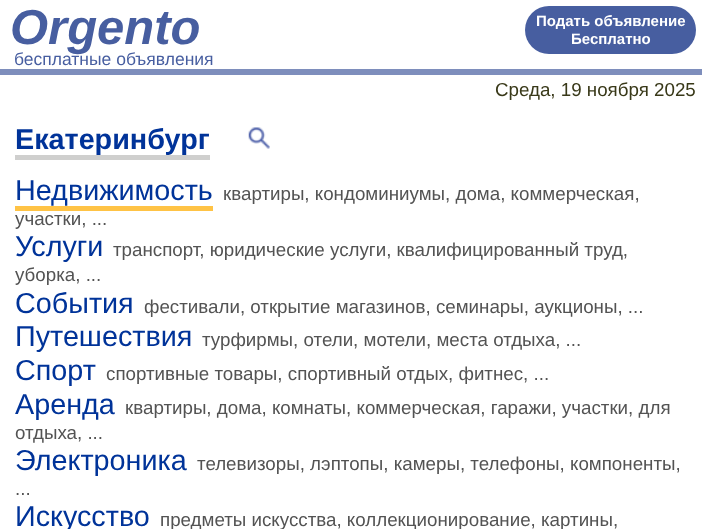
<?xml version="1.0" encoding="UTF-8"?>
<svg xmlns="http://www.w3.org/2000/svg" xmlns:xlink="http://www.w3.org/1999/xlink" width="702" height="529">
  <rect width="100%" height="100%" fill="#ffffff" />
  <rect y="69" width="702" height="6" fill="#7e8ebc" />
  <rect x="525" y="6" width="171" height="48" rx="24" fill="#475ea0" />
  <rect x="15" y="155" width="195" height="5" fill="#cfcfce" />
  <image x="248" y="127" width="22" height="22" xlink:href="image1.png" />
  <rect x="15" y="206" width="198" height="5" fill="#ffc345" />
  <text x="10" y="44" style="font-family: Liberation Sans; font-size: 49px; font-weight: bold; font-style: italic; fill: #475ea0">Orgento</text>
  <text x="536" y="26" style="font-family: Liberation Sans; font-size: 15px; font-weight: bold; fill: #ffffff">Подать объявление</text>
  <text x="571" y="44" style="font-family: Liberation Sans; font-size: 15px; font-weight: bold; fill: #ffffff">Бесплатно</text>
  <text x="14" y="65" style="font-family: Liberation Sans; font-size: 17.5px; fill: #475ea0">бесплатные объявления</text>
  <text x="495" y="96" style="font-family: Liberation Sans; font-size: 18.75px; fill: #393919">Среда, 19 ноября 2025</text>
  <text x="15" y="149" style="font-family: Liberation Sans; font-size: 28.75px; font-weight: bold; fill: #003399">Екатеринбург</text>
  <text x="15" y="200" style="font-family: Liberation Sans; font-size: 28.75px; fill: #003399">Недвижимость</text>
  <text x="223" y="200" style="font-family: Liberation Sans; font-size: 18.75px; fill: #535353">квартиры, кондоминиумы, дома, коммерческая,</text>
  <text x="15" y="225" style="font-family: Liberation Sans; font-size: 18.75px; fill: #535353">участки, ...</text>
  <text x="15" y="256" style="font-family: Liberation Sans; font-size: 28.75px; fill: #003399">Услуги</text>
  <text x="113" y="256" style="font-family: Liberation Sans; font-size: 18.75px; fill: #535353">транспорт, юридические услуги, квалифицированный труд,</text>
  <text x="15" y="281" style="font-family: Liberation Sans; font-size: 18.75px; fill: #535353">уборка, ...</text>
  <text x="15" y="313" style="font-family: Liberation Sans; font-size: 28.75px; fill: #003399">События</text>
  <text x="144" y="313" style="font-family: Liberation Sans; font-size: 18.75px; fill: #535353">фестивали, открытие магазинов, семинары, аукционы, ...</text>
  <text x="15" y="346" style="font-family: Liberation Sans; font-size: 28.75px; fill: #003399">Путешествия</text>
  <text x="202" y="346" style="font-family: Liberation Sans; font-size: 18.75px; fill: #535353">турфирмы, отели, мотели, места отдыха, ...</text>
  <text x="15" y="380" style="font-family: Liberation Sans; font-size: 28.75px; fill: #003399">Спорт</text>
  <text x="106" y="380" style="font-family: Liberation Sans; font-size: 18.75px; fill: #535353">спортивные товары, спортивный отдых, фитнес, ...</text>
  <text x="15" y="414" style="font-family: Liberation Sans; font-size: 28.75px; fill: #003399">Аренда</text>
  <text x="125" y="414" style="font-family: Liberation Sans; font-size: 18.75px; fill: #535353">квартиры, дома, комнаты, коммерческая, гаражи, участки, для</text>
  <text x="15" y="439" style="font-family: Liberation Sans; font-size: 18.75px; fill: #535353">отдыха, ...</text>
  <text x="15" y="470" style="font-family: Liberation Sans; font-size: 28.75px; fill: #003399">Электроника</text>
  <text x="197" y="470" style="font-family: Liberation Sans; font-size: 18.75px; fill: #535353">телевизоры, лэптопы, камеры, телефоны, компоненты,</text>
  <text x="15" y="495" style="font-family: Liberation Sans; font-size: 18.75px; fill: #535353">...</text>
  <text x="15" y="526" style="font-family: Liberation Sans; font-size: 28.75px; fill: #003399">Искусство</text>
  <text x="160" y="526" style="font-family: Liberation Sans; font-size: 18.75px; fill: #535353">предметы искусства, коллекционирование, картины,</text>
</svg>
